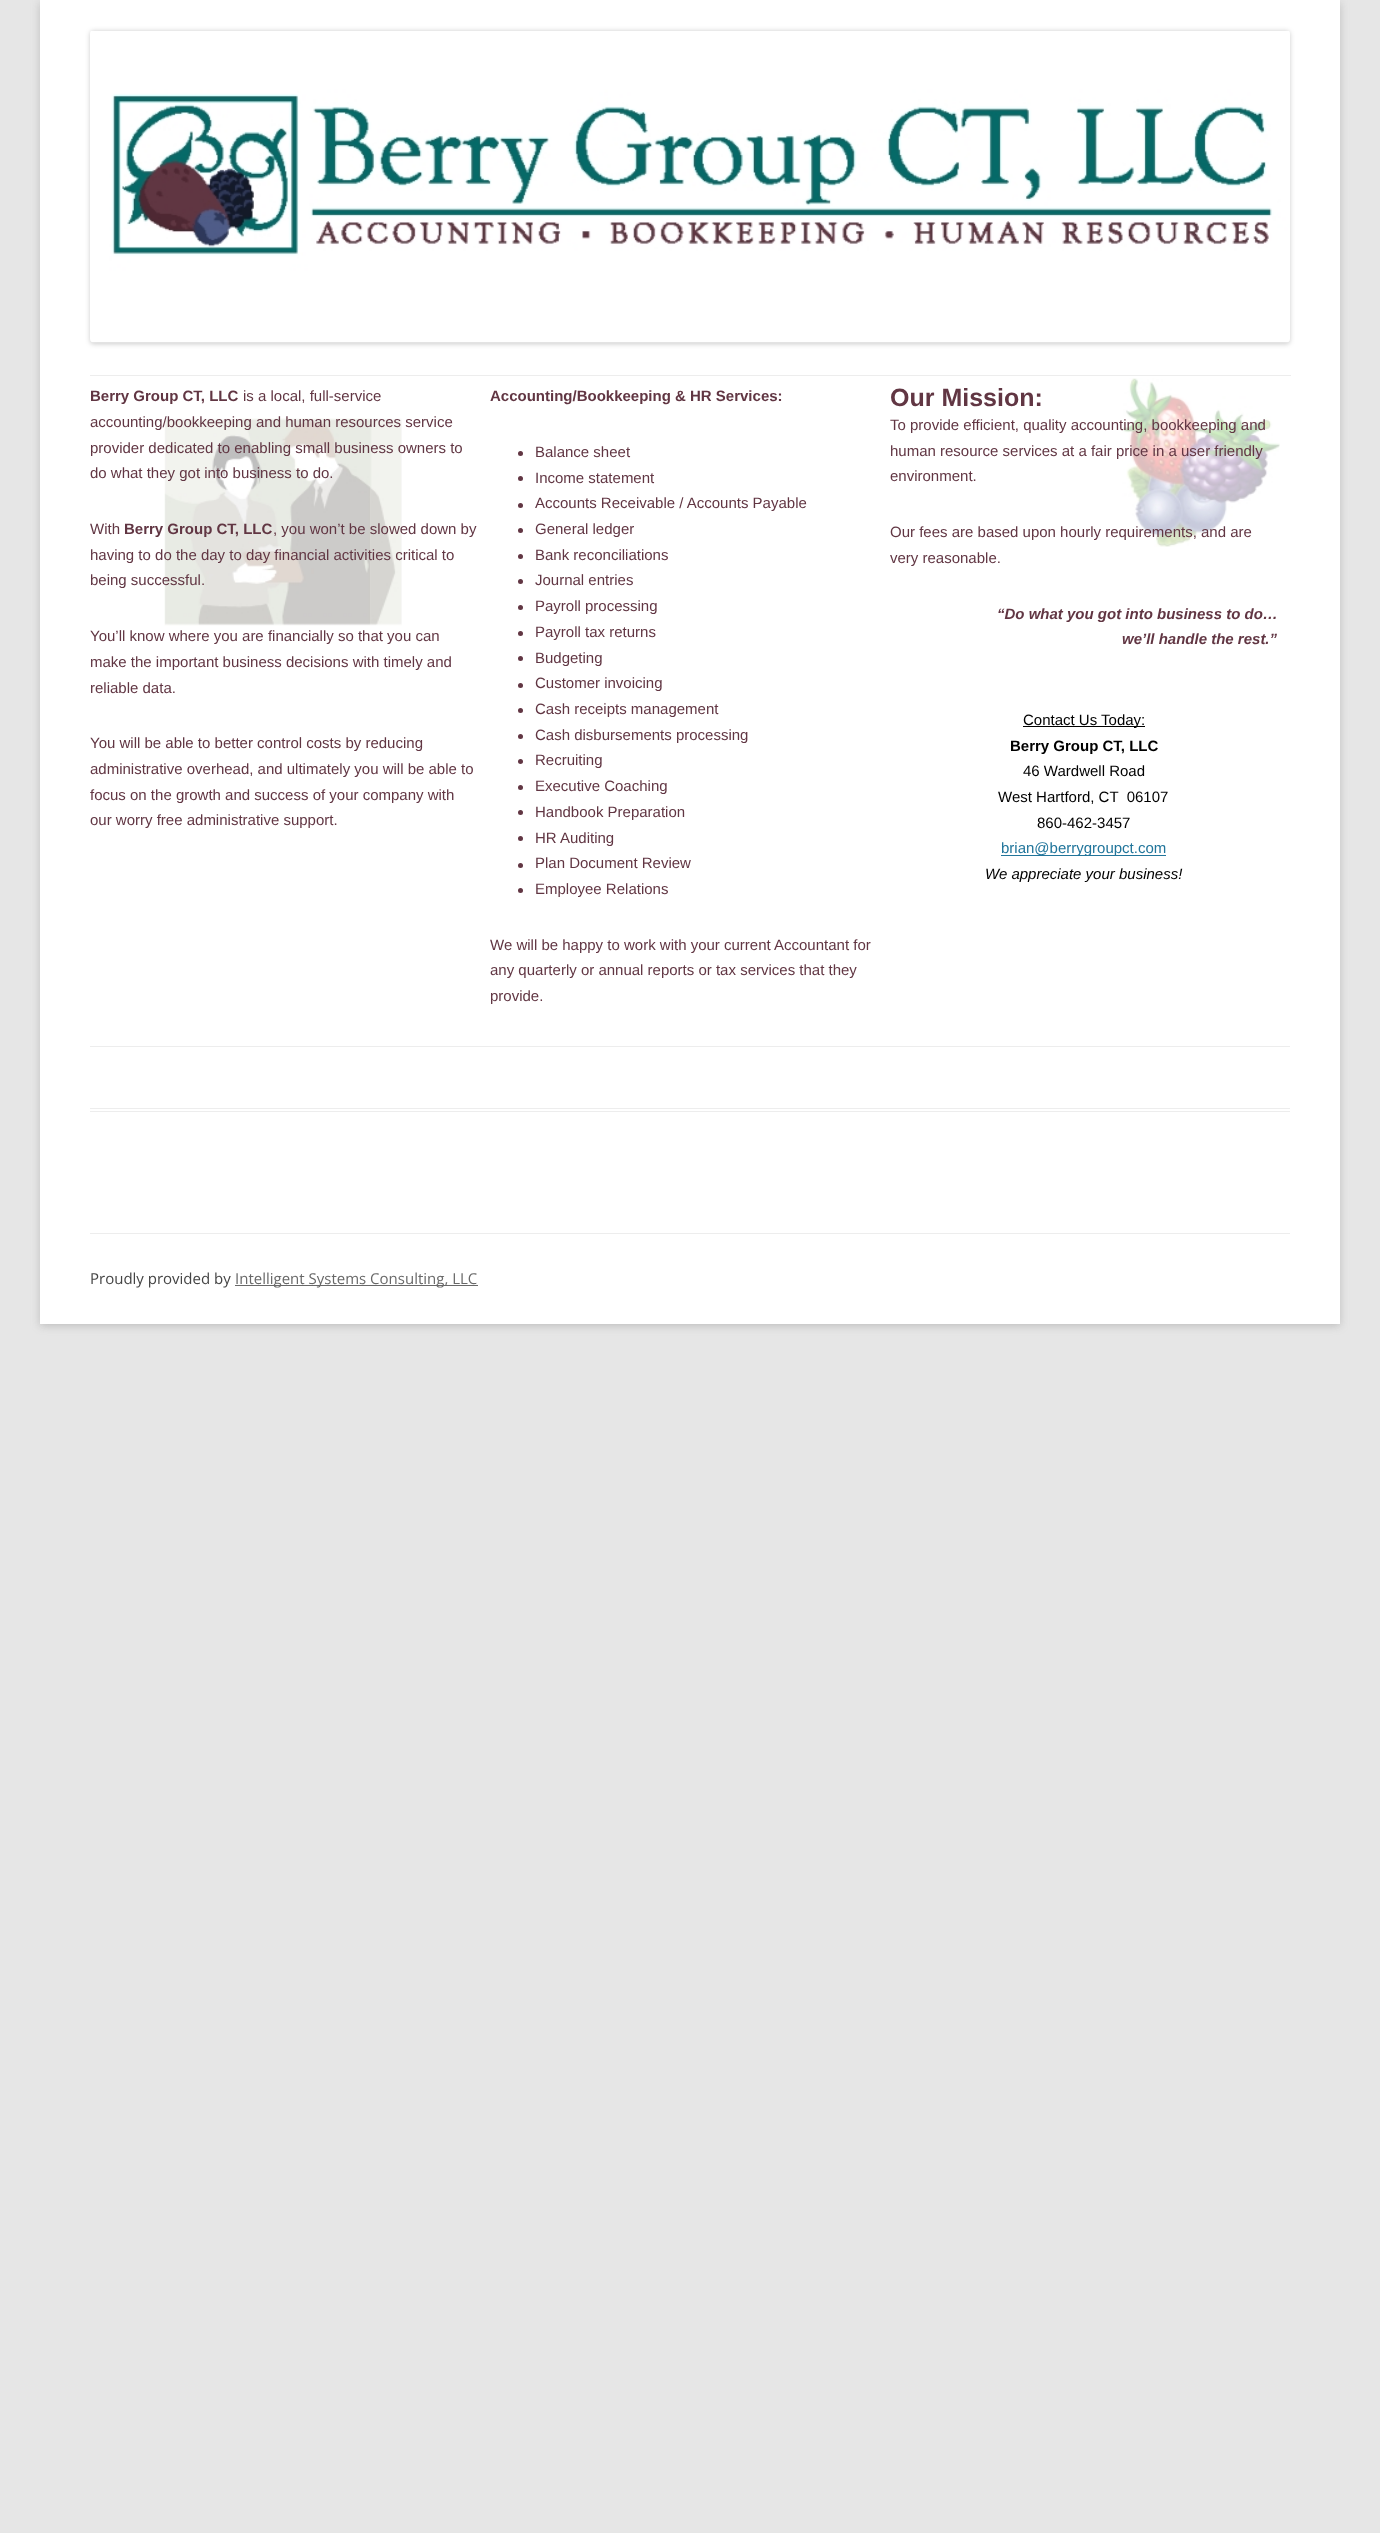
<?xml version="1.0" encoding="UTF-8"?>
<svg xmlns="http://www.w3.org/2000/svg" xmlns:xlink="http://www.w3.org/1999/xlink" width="1380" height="2533">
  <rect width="100%" height="100%" fill="#e6e6e6" />
  <rect x="40" y="3" width="1300" height="1323" fill="#646464" fill-opacity="0.3" filter="blur(4px)" />
  <rect x="40" width="1300" height="1324" fill="#ffffff" />
  <rect x="90" y="31" width="1200" height="313" rx="4" fill="#000000" fill-opacity="0.2" filter="blur(2.5px)" />
  <image x="90" y="31" width="1200" height="312" xlink:href="image1.png" />
  <rect x="90" y="1108" width="1200" height="1" fill="#ededed" />
  <rect x="90" y="1111" width="1200" height="1" fill="#ededed" />
  <rect x="90" y="1046" width="1200" height="1" fill="#ededed" />
  <image x="164" y="418" width="238" height="208" xlink:href="image2.png" />
  <circle cx="520.5" cy="453.5" r="2.5" fill="#613643" />
  <circle cx="520.5" cy="478.5" r="2.5" fill="#613643" />
  <circle cx="520.5" cy="505.5" r="2.5" fill="#613643" />
  <circle cx="520.5" cy="530.5" r="2.5" fill="#613643" />
  <circle cx="520.5" cy="556.5" r="2.5" fill="#613643" />
  <circle cx="520.5" cy="581.5" r="2.5" fill="#613643" />
  <circle cx="520.5" cy="607.5" r="2.5" fill="#613643" />
  <circle cx="520.5" cy="633.5" r="2.5" fill="#613643" />
  <circle cx="520.5" cy="658.5" r="2.5" fill="#613643" />
  <circle cx="520.5" cy="685.5" r="2.5" fill="#613643" />
  <circle cx="520.5" cy="710.5" r="2.5" fill="#613643" />
  <circle cx="520.5" cy="736.5" r="2.5" fill="#613643" />
  <circle cx="520.5" cy="761.5" r="2.5" fill="#613643" />
  <circle cx="520.5" cy="787.5" r="2.5" fill="#613643" />
  <circle cx="520.5" cy="812.5" r="2.5" fill="#613643" />
  <circle cx="520.5" cy="838.5" r="2.5" fill="#613643" />
  <circle cx="520.5" cy="865.5" r="2.5" fill="#613643" />
  <circle cx="520.5" cy="890.5" r="2.5" fill="#613643" />
  <image x="1122" y="378" width="158" height="169" xlink:href="image3.png" />
  <rect x="90" y="375" width="1201" height="1" fill="#ededed" />
  <rect x="1023" y="726" width="122" height="1" fill="#000000" />
  <rect x="1001" y="855" width="165" height="1" fill="#21759b" />
  <rect x="90" y="1233" width="1200" height="1" fill="#ededed" />
  <rect x="235" y="1285" width="243" height="1" fill="#686868" />
  <text x="90" y="401" style="font-family: Liberation Sans; font-size: 15px; font-weight: bold; fill: #613643">Berry Group CT, LLC</text>
  <text x="243" y="401" style="font-family: Liberation Sans; font-size: 15px; fill: #613643">is a local, full-service</text>
  <text x="90" y="427" style="font-family: Liberation Sans; font-size: 15px; fill: #613643">accounting/bookkeeping and human resources service</text>
  <text x="90" y="453" style="font-family: Liberation Sans; font-size: 15px; fill: #613643">provider dedicated to enabling small business owners to</text>
  <text x="90" y="478" style="font-family: Liberation Sans; font-size: 15px; fill: #613643">do what they got into business to do.</text>
  <text x="90" y="534" style="font-family: Liberation Sans; font-size: 15px; fill: #613643">With</text>
  <text x="124" y="534" style="font-family: Liberation Sans; font-size: 15px; font-weight: bold; fill: #613643">Berry Group CT, LLC</text>
  <text x="273" y="534" style="font-family: Liberation Sans; font-size: 15px; fill: #613643">, you won’t be slowed down by</text>
  <text x="90" y="560" style="font-family: Liberation Sans; font-size: 15px; fill: #613643">having to do the day to day financial activities critical to</text>
  <text x="90" y="585" style="font-family: Liberation Sans; font-size: 15px; fill: #613643">being successful.</text>
  <text x="90" y="641" style="font-family: Liberation Sans; font-size: 15px; fill: #613643">You’ll know where you are financially so that you can</text>
  <text x="90" y="667" style="font-family: Liberation Sans; font-size: 15px; fill: #613643">make the important business decisions with timely and</text>
  <text x="90" y="693" style="font-family: Liberation Sans; font-size: 15px; fill: #613643">reliable data.</text>
  <text x="90" y="748" style="font-family: Liberation Sans; font-size: 15px; fill: #613643">You will be able to better control costs by reducing</text>
  <text x="90" y="774" style="font-family: Liberation Sans; font-size: 15px; fill: #613643">administrative overhead, and ultimately you will be able to</text>
  <text x="90" y="800" style="font-family: Liberation Sans; font-size: 15px; fill: #613643">focus on the growth and success of your company with</text>
  <text x="90" y="825" style="font-family: Liberation Sans; font-size: 15px; fill: #613643">our worry free administrative support.</text>
  <text x="490" y="401" style="font-family: Liberation Sans; font-size: 15px; font-weight: bold; fill: #613643">Accounting/Bookkeeping &amp; HR Services:</text>
  <text x="535" y="457" style="font-family: Liberation Sans; font-size: 15px; fill: #613643">Balance sheet</text>
  <text x="535" y="483" style="font-family: Liberation Sans; font-size: 15px; fill: #613643">Income statement</text>
  <text x="535" y="508" style="font-family: Liberation Sans; font-size: 15px; fill: #613643">Accounts Receivable / Accounts Payable</text>
  <text x="535" y="534" style="font-family: Liberation Sans; font-size: 15px; fill: #613643">General ledger</text>
  <text x="535" y="560" style="font-family: Liberation Sans; font-size: 15px; fill: #613643">Bank reconciliations</text>
  <text x="535" y="585" style="font-family: Liberation Sans; font-size: 15px; fill: #613643">Journal entries</text>
  <text x="535" y="611" style="font-family: Liberation Sans; font-size: 15px; fill: #613643">Payroll processing</text>
  <text x="535" y="637" style="font-family: Liberation Sans; font-size: 15px; fill: #613643">Payroll tax returns</text>
  <text x="535" y="663" style="font-family: Liberation Sans; font-size: 15px; fill: #613643">Budgeting</text>
  <text x="535" y="688" style="font-family: Liberation Sans; font-size: 15px; fill: #613643">Customer invoicing</text>
  <text x="535" y="714" style="font-family: Liberation Sans; font-size: 15px; fill: #613643">Cash receipts management</text>
  <text x="535" y="740" style="font-family: Liberation Sans; font-size: 15px; fill: #613643">Cash disbursements processing</text>
  <text x="535" y="765" style="font-family: Liberation Sans; font-size: 15px; fill: #613643">Recruiting</text>
  <text x="535" y="791" style="font-family: Liberation Sans; font-size: 15px; fill: #613643">Executive Coaching</text>
  <text x="535" y="817" style="font-family: Liberation Sans; font-size: 15px; fill: #613643">Handbook Preparation</text>
  <text x="535" y="843" style="font-family: Liberation Sans; font-size: 15px; fill: #613643">HR Auditing</text>
  <text x="535" y="868" style="font-family: Liberation Sans; font-size: 15px; fill: #613643">Plan Document Review</text>
  <text x="535" y="894" style="font-family: Liberation Sans; font-size: 15px; fill: #613643">Employee Relations</text>
  <text x="490" y="950" style="font-family: Liberation Sans; font-size: 15px; fill: #613643">We will be happy to work with your current Accountant for</text>
  <text x="490" y="975" style="font-family: Liberation Sans; font-size: 15px; fill: #613643">any quarterly or annual reports or tax services that they</text>
  <text x="490" y="1001" style="font-family: Liberation Sans; font-size: 15px; fill: #613643">provide.</text>
  <text x="890" y="406" style="font-family: Liberation Sans; font-size: 25px; font-weight: bold; fill: #613643">Our Mission:</text>
  <text x="890" y="430" style="font-family: Liberation Sans; font-size: 15px; fill: #613643">To provide efficient, quality accounting, bookkeeping and</text>
  <text x="890" y="456" style="font-family: Liberation Sans; font-size: 15px; fill: #613643">human resource services at a fair price in a user friendly</text>
  <text x="890" y="481" style="font-family: Liberation Sans; font-size: 15px; fill: #613643">environment.</text>
  <text x="890" y="537" style="font-family: Liberation Sans; font-size: 15px; fill: #613643">Our fees are based upon hourly requirements, and are</text>
  <text x="890" y="563" style="font-family: Liberation Sans; font-size: 15px; fill: #613643">very reasonable.</text>
  <text x="997" y="619" style="font-family: Liberation Sans; font-size: 15px; font-weight: bold; font-style: italic; fill: #613643">“Do what you got into business to do…</text>
  <text x="1122" y="644" style="font-family: Liberation Sans; font-size: 15px; font-weight: bold; font-style: italic; fill: #613643">we’ll handle the rest.”</text>
  <text x="1023" y="725" style="font-family: Liberation Sans; font-size: 15px; fill: #000000">Contact Us Today:</text>
  <text x="1010" y="751" style="font-family: Liberation Sans; font-size: 15px; font-weight: bold; fill: #000000">Berry Group CT, LLC</text>
  <text x="1023" y="776" style="font-family: Liberation Sans; font-size: 15px; fill: #000000">46 Wardwell Road</text>
  <text x="998" y="802" style="font-family: Liberation Sans; font-size: 15px; fill: #000000" xml:space="preserve">West Hartford, CT  06107</text>
  <text x="1037" y="828" style="font-family: Liberation Sans; font-size: 15px; fill: #000000">860-462-3457</text>
  <text x="1001" y="853" style="font-family: Liberation Sans; font-size: 15px; fill: #21759b">brian@berrygroupct.com</text>
  <text x="985" y="879" style="font-family: Liberation Sans; font-size: 15px; font-style: italic; fill: #000000">We appreciate your business!</text>
  <text x="90" y="1284" style="font-family: Open Sans; font-size: 15px; fill: #444444">Proudly provided by</text>
  <text x="235" y="1284" style="font-family: Open Sans; font-size: 15px; fill: #686868">Intelligent Systems Consulting, LLC</text>
</svg>
